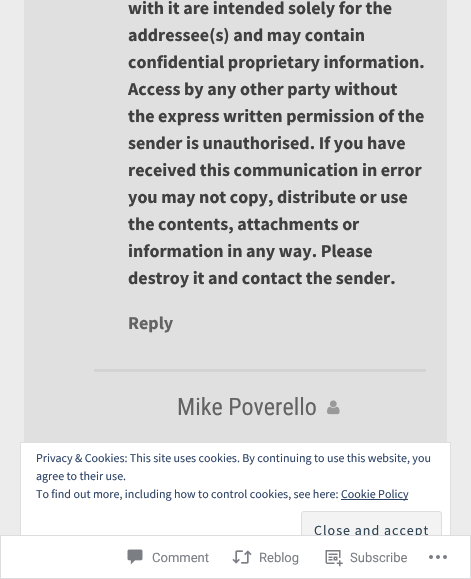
#include "include/core/SkBlurTypes.h"
#include "include/core/SkCanvas.h"
#include "include/core/SkData.h"
#include "include/core/SkFont.h"
#include "include/core/SkFontMgr.h"
#include "include/core/SkImage.h"
#include "include/core/SkMaskFilter.h"
#include "include/core/SkPaint.h"
#include "include/core/SkPathBuilder.h"
#include "include/core/SkTextBlob.h"
#include "include/effects/SkDashPathEffect.h"
#include "include/effects/SkGradientShader.h"
#include "include/utils/SkParsePath.h"

extern sk_sp<SkFontMgr> fontMgr;

static SkFont font(const char* family, int weight, float size, bool italic = false) {
    SkFontStyle style(weight, SkFontStyle::kNormal_Width,
        italic ? SkFontStyle::kItalic_Slant : SkFontStyle::kUpright_Slant);
    SkFont result(fontMgr->matchFamilyStyle(family, style), size);
    result.setSubpixel(true);
    return result;
}

static void drawLabel(SkCanvas* canvas, const char* s, float x, float y, const SkFont& font, SkColor color) {
    SkPaint ink(SkColor4f::FromColor(color));
    ink.setAntiAlias(true);
    canvas->drawString(s, x, y, font, ink);
}

static void drawTracked(SkCanvas* canvas, const char* s, float x, float y, const SkFont& font, const SkPaint& ink, float letter, float word) {
    std::vector<SkGlyphID> glyphs(font.countText(s, strlen(s), SkTextEncoding::kUTF8));
    std::vector<float> xs(glyphs.size());
    font.textToGlyphs(s, strlen(s), SkTextEncoding::kUTF8, glyphs);
    font.getXPos(glyphs, xs, x);
    float extra = 0;
    for (size_t i = 0; i < glyphs.size(); i++) {
        xs[i] += extra;
        extra += letter + word * (glyphs[i] == font.unicharToGlyph(' '));
    }
    canvas->drawTextBlob(SkTextBlob::MakeFromPosHGlyphs(glyphs, xs, y, font), 0, 0, ink);
}

static void fillRect(SkCanvas* canvas, float x, float y, float w, float h, SkColor color) {
    SkPaint ink(SkColor4f::FromColor(color));
    ink.setAntiAlias(true);
    canvas->drawRect(SkRect::MakeXYWH(x, y, w, h), ink);
}

static void drawPhoto(SkCanvas* canvas, const char* path, float x, float y, float w, float h) {
    auto image = SkImages::DeferredFromEncodedData(SkData::MakeFromFileName(path));
    canvas->drawImageRect(image, SkRect::MakeXYWH(x, y, w, h), SkSamplingOptions());
}

void draw(SkCanvas* canvas) {
    SkPaint paint;
    paint.setAntiAlias(true);
    canvas->clear(0xFFECECEC);
    fillRect(canvas, 24, 0, 423, 579, 0xFFE0E0E0);
    SkFont font1 = font("Source Sans Pro", 700, 18);
    drawLabel(canvas, "with it are intended solely for the", 128, 14, font1, 0xFF404040);
    drawLabel(canvas, "addressee(s) and may contain", 128, 41, font1, 0xFF404040);
    drawLabel(canvas, "confidential proprietary information.", 128, 68, font1, 0xFF404040);
    drawLabel(canvas, "Access by any other party without", 128, 95, font1, 0xFF404040);
    drawLabel(canvas, "the express written permission of the", 128, 122, font1, 0xFF404040);
    drawLabel(canvas, "sender is unauthorised. If you have", 128, 149, font1, 0xFF404040);
    drawLabel(canvas, "received this communication in error", 128, 176, font1, 0xFF404040);
    drawLabel(canvas, "you may not copy, distribute or use", 128, 203, font1, 0xFF404040);
    drawLabel(canvas, "the contents, attachments or", 128, 230, font1, 0xFF404040);
    drawLabel(canvas, "information in any way. Please", 128, 257, font1, 0xFF404040);
    drawLabel(canvas, "destroy it and contact the sender.", 128, 284, font1, 0xFF404040);
    drawLabel(canvas, "Reply", 128, 329, font1, 0xFF636363);
    fillRect(canvas, 94, 369, 332, 3, 0xFFD3D3D3);
    SkFont font2 = font("Roboto Condensed", 400, 24);
    drawLabel(canvas, "Mike Poverello", 177, 415, font2, 0xFF636363);
    drawPhoto(canvas, "assets/img1.png", 327, 400, 13, 15);
    paint.setColor(0xFFFFFFFF);
    canvas->drawRect(SkRect::MakeXYWH(20.5f, 442.5f, 430, 116), paint);
    paint.setStroke(true);
    paint.setStrokeWidth(1);
    paint.setColor(0xFFDEDEDE);
    canvas->drawRect(SkRect::MakeXYWH(20.5f, 442.5f, 430, 116), paint);
    SkFont font3 = font("Source Sans Pro", 400, 12);
    drawLabel(canvas, "Privacy & Cookies: This site uses cookies. By continuing to use this website, you", 36, 462, font3, 0xFF2E4467);
    drawLabel(canvas, "agree to their use.", 36, 480, font3, 0xFF2E4467);
    drawLabel(canvas, "To find out more, including how to control cookies, see here:", 36, 498, font3, 0xFF2E4467);
    fillRect(canvas, 341, 499, 67, 1, 0xFF2E4467);
    drawLabel(canvas, "Cookie Policy", 341, 498, font3, 0xFF2E4467);
    paint.setStroke(false);
    paint.setColor(0xFFF3F3F3);
    canvas->drawRoundRect(SkRect::MakeXYWH(301.5f, 511.5f, 140, 38), 2.5f, 2.5f, paint);
    paint.setStroke(true);
    paint.setColor(0xFFDEDEDE);
    canvas->drawRoundRect(SkRect::MakeXYWH(301.5f, 511.5f, 140, 38), 2.5f, 2.5f, paint);
    SkFont font4 = font("Source Sans Pro", 400, 14);
    paint.setStroke(false);
    paint.setColor(0xFF2E4453);
    drawTracked(canvas, "Close and accept", 314, 535, font4, paint, 1, 0);
    fillRect(canvas, 0, 535, 471, 44, 0xFAFFFFFF);
    paint.setStroke(true);
    paint.setColor(0xFADCDCDE);
    canvas->drawRect(SkRect::MakeXYWH(0.5f, 535.5f, 470, 43), paint);
    drawPhoto(canvas, "assets/img2.png", 127, 549, 16, 16);
    SkFont font5 = font("Roboto", 400, 13);
    drawLabel(canvas, "Comment", 152, 562, font5, 0xFF7B7F84);
    drawPhoto(canvas, "assets/img3.png", 232, 550, 20, 14);
    drawLabel(canvas, "Reblog", 259, 562, font5, 0xFF7B7F84);
    drawPhoto(canvas, "assets/img4.png", 325, 550, 18, 17);
    drawLabel(canvas, "Subscribe", 350, 562, font5, 0xFF7B7F84);
    drawPhoto(canvas, "assets/img5.png", 429, 555, 18, 4);
}
